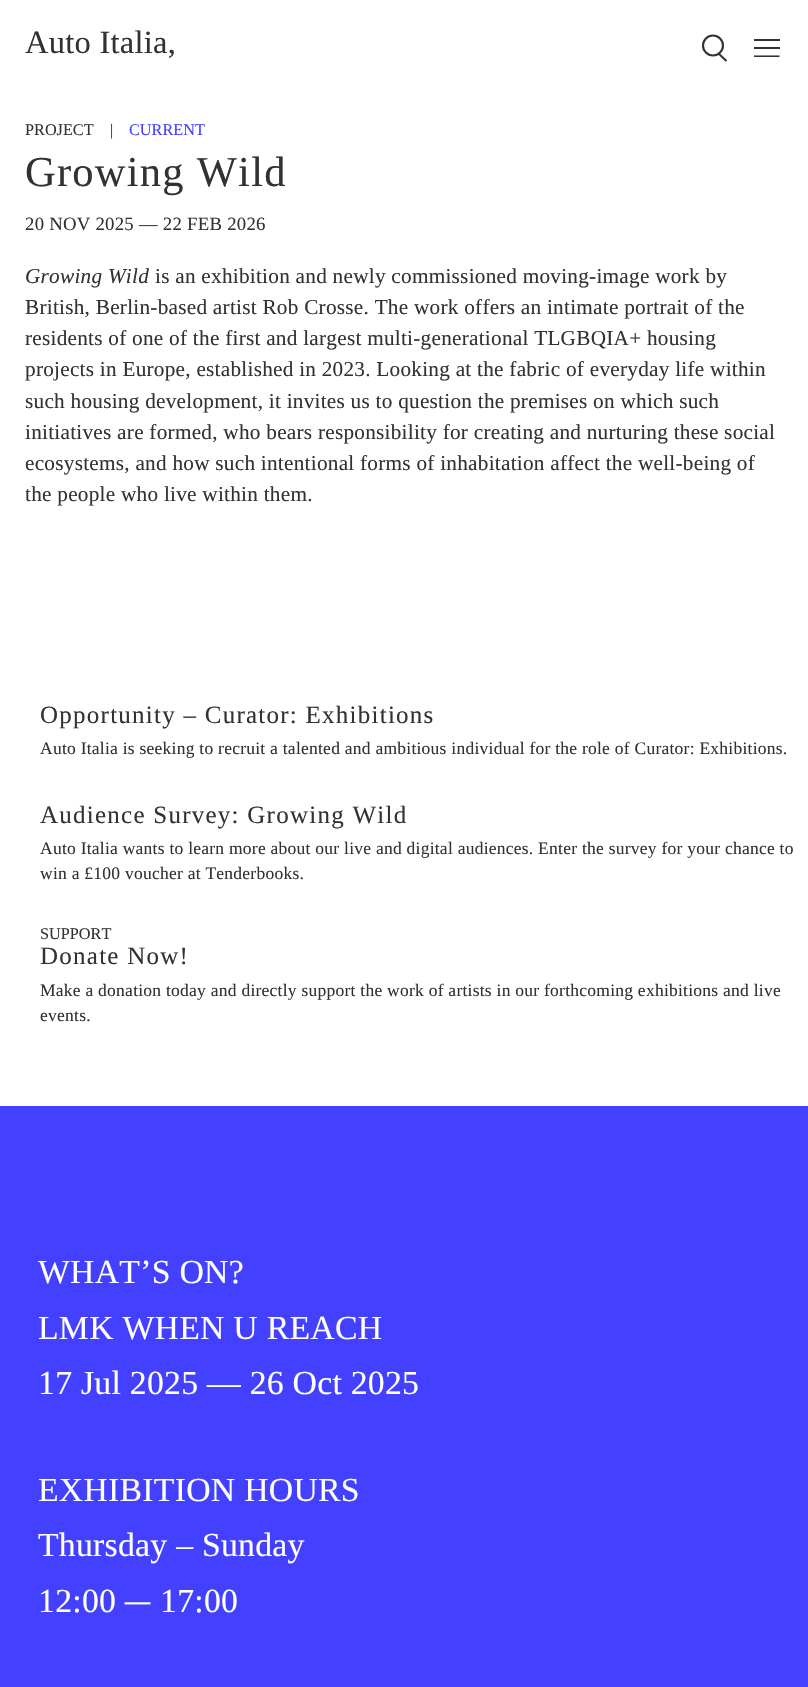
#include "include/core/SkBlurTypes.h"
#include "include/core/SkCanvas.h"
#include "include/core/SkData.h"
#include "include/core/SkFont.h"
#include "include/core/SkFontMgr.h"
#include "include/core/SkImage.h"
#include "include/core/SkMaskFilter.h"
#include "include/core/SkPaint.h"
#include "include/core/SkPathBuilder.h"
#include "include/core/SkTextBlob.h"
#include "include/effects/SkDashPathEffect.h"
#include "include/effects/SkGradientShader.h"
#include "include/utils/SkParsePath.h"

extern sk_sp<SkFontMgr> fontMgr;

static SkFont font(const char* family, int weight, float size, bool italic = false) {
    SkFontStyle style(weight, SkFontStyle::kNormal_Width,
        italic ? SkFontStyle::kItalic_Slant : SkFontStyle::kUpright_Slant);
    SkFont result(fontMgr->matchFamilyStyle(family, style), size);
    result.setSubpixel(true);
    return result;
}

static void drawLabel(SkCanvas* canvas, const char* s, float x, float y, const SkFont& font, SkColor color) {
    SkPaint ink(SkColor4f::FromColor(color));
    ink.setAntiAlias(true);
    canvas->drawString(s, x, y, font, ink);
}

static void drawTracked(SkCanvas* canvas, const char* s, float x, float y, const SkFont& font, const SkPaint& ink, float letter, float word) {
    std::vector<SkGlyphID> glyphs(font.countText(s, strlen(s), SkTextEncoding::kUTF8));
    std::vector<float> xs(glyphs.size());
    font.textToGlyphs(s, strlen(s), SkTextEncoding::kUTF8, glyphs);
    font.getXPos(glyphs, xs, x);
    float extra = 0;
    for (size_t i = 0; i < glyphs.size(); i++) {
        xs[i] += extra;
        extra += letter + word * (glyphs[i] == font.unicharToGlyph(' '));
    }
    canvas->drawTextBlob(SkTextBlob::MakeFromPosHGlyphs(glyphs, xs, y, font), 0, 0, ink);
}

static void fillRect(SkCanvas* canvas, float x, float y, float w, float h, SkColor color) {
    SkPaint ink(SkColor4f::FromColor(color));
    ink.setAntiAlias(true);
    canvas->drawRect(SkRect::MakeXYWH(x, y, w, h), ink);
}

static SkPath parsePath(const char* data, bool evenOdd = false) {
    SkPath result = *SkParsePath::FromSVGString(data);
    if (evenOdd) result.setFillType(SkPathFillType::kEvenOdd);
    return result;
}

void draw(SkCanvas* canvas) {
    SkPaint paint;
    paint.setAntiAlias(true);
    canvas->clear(0xFFFFFFFF);
    SkFont font1 = font("Liberation Serif", 400, 32.5f);
    paint.setColor(0xFF323232);
    drawTracked(canvas, "Auto Italia,", 25, 53, font1, paint, 0.25f, 0);
    paint.setStroke(true);
    paint.setStrokeWidth(2.1f);
    canvas->drawCircle(713, 45.5f, 10, paint);
    canvas->drawPath(parsePath("M719 54L726.5 61"), paint);
    fillRect(canvas, 754, 39, 26, 2, 0xFF323232);
    fillRect(canvas, 754, 47, 26, 2, 0xFF323232);
    canvas->save();
    canvas->clipRect(SkRect::MakeXYWH(754, 39, 26, 18));
    canvas->drawPath(parsePath("M754 56.5H779.5"), paint);
    canvas->restore();
    SkFont font2 = font("Liberation Serif", 400, 16.25f);
    drawLabel(canvas, "PROJECT", 25, 135, font2, 0xFF323232);
    drawLabel(canvas, "|", 110, 135, font2, 0xFF323232);
    drawLabel(canvas, "CURRENT", 129, 135, font2, 0xFF4340FF);
    SkFont font3 = font("Liberation Serif", 400, 42.5f);
    paint.setStroke(false);
    drawTracked(canvas, "Growing Wild", 25, 186, font3, paint, 1.25f, 0);
    SkFont font4 = font("Liberation Serif", 400, 18.75f);
    drawTracked(canvas, "20 NOV 2025 — 22 FEB 2026", 25, 230, font4, paint, 0.25f, 0);
    SkFont font5 = font("Liberation Serif", 400, 21.25f, true);
    drawTracked(canvas, "Growing Wild", 25, 283, font5, paint, 0.25f, 0);
    SkFont font6 = font("Liberation Serif", 400, 21.25f);
    drawTracked(canvas, "is an exhibition and newly commissioned moving-image work by", 155, 283, font6, paint, 0.25f, 0);
    drawTracked(canvas, "British, Berlin-based artist Rob Crosse. The work offers an intimate portrait of the", 25, 314, font6, paint, 0.25f, 0);
    drawTracked(canvas, "residents of one of the first and largest multi-generational TLGBQIA+ housing", 25, 345, font6, paint, 0.25f, 0);
    drawTracked(canvas, "projects in Europe, established in 2023. Looking at the fabric of everyday life within", 25, 376, font6, paint, 0.25f, 0);
    drawTracked(canvas, "such housing development, it invites us to question the premises on which such", 25, 408, font6, paint, 0.25f, 0);
    drawTracked(canvas, "initiatives are formed, who bears responsibility for creating and nurturing these social", 25, 439, font6, paint, 0.25f, 0);
    drawTracked(canvas, "ecosystems, and how such intentional forms of inhabitation affect the well-being of", 25, 470, font6, paint, 0.25f, 0);
    drawTracked(canvas, "the people who live within them.", 25, 501, font6, paint, 0.25f, 0);
    SkFont font7 = font("Liberation Serif", 400, 25);
    drawTracked(canvas, "Opportunity – Curator: Exhibitions", 40, 723, font7, paint, 1.25f, 0);
    SkFont font8 = font("Liberation Serif", 400, 17.5f);
    drawTracked(canvas, "Auto Italia is seeking to recruit a talented and ambitious individual for the role of Curator: Exhibitions.", 40, 754, font8, paint, 0.25f, 0);
    drawTracked(canvas, "Audience Survey: Growing Wild", 40, 823, font7, paint, 1.25f, 0);
    drawTracked(canvas, "Auto Italia wants to learn more about our live and digital audiences. Enter the survey for your chance to", 40, 854, font8, paint, 0.25f, 0);
    drawTracked(canvas, "win a £100 voucher at Tenderbooks.", 40, 879, font8, paint, 0.25f, 0);
    drawLabel(canvas, "SUPPORT", 40, 939, font2, 0xFF323232);
    drawTracked(canvas, "Donate Now!", 40, 964, font7, paint, 1.25f, 0);
    drawTracked(canvas, "Make a donation today and directly support the work of artists in our forthcoming exhibitions and live", 40, 996, font8, paint, 0.25f, 0);
    drawTracked(canvas, "events.", 40, 1021, font8, paint, 0.25f, 0);
    fillRect(canvas, 0, 1106, 808, 581, 0xFF4340FF);
    SkFont font9 = font("Liberation Serif", 400, 33.75f);
    paint.setColor(0xFFFFFFFF);
    drawTracked(canvas, "WHAT’S ON?", 38, 1283, font9, paint, 0.25f, 0);
    drawTracked(canvas, "LMK WHEN U REACH", 38, 1339, font9, paint, 0.25f, 0);
    drawTracked(canvas, "17 Jul 2025 — 26 Oct 2025", 38, 1394, font9, paint, 0.25f, 0);
    drawTracked(canvas, "EXHIBITION HOURS", 38, 1501, font9, paint, 0.25f, 0);
    drawTracked(canvas, "Thursday – Sunday", 38, 1556, font9, paint, 0.25f, 0);
    drawTracked(canvas, "12:00", 38, 1612, font9, paint, 0.25f, 0);
    SkFont font10 = font("FreeSerif", 400, 33.75f);
    drawTracked(canvas, "⏤", 124, 1612, font10, paint, 0.25f, 0);
    drawTracked(canvas, "17:00", 160, 1612, font9, paint, 0.25f, 0);
}
